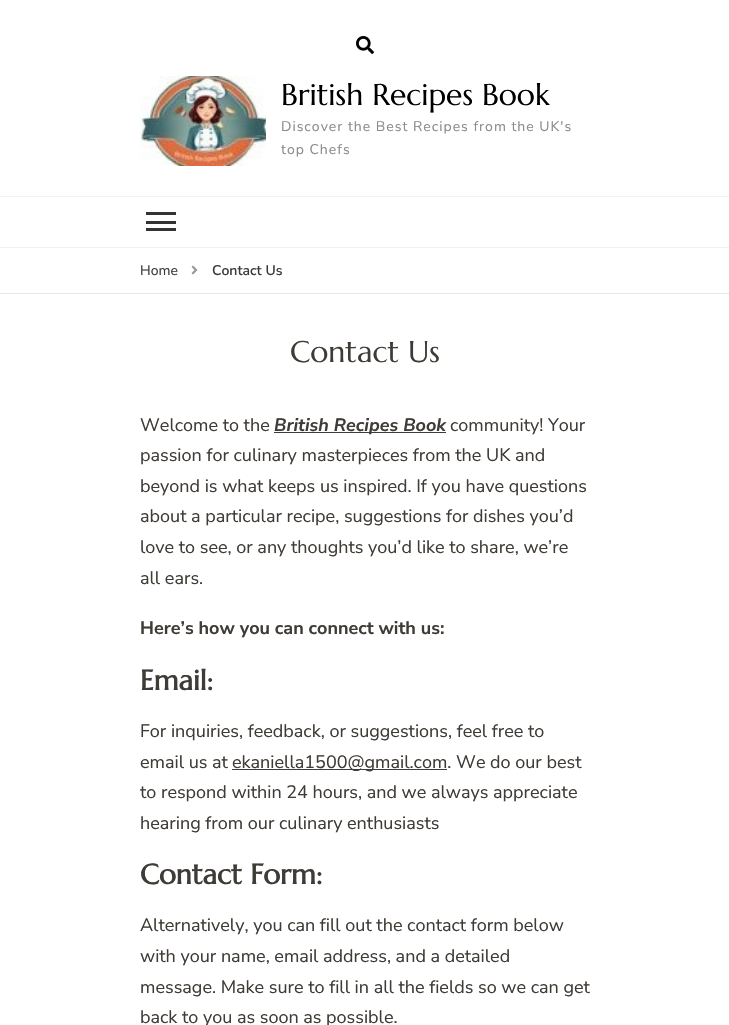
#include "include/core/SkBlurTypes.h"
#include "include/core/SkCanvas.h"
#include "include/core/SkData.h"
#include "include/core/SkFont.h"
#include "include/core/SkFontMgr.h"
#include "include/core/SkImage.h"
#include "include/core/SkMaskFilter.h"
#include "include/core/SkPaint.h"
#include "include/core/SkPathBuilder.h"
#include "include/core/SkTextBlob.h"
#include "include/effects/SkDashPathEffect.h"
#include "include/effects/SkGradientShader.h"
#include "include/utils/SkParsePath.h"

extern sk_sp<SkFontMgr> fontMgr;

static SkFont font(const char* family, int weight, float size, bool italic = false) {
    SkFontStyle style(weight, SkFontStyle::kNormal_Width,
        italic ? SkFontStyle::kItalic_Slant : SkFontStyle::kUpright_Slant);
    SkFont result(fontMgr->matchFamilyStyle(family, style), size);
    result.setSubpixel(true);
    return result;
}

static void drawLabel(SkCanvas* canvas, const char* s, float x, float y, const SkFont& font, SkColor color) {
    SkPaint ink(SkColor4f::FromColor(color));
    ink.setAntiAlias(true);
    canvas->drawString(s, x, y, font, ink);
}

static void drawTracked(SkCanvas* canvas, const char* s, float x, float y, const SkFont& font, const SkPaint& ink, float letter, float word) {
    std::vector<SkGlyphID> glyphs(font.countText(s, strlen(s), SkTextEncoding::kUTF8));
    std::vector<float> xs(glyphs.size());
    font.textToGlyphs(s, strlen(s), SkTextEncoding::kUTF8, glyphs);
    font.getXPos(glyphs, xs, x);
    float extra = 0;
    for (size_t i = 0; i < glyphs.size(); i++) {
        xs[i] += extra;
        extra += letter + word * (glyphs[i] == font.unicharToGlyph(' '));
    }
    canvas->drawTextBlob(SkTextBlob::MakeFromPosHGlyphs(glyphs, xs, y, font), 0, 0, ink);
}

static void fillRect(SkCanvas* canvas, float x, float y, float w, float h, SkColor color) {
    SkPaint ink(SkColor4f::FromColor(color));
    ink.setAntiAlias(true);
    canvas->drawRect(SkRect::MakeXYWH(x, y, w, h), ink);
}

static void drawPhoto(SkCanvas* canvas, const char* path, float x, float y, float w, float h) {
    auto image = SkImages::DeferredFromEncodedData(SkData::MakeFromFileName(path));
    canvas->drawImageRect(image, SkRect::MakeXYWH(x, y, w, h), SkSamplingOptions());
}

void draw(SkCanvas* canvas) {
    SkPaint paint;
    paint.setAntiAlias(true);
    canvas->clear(0xFFFFFFFF);
    fillRect(canvas, 0, 247, 729, 1, 0xFFF2F2F2);
    drawPhoto(canvas, "assets/img1.png", 356, 36, 18, 18);
    drawPhoto(canvas, "assets/img2.png", 140, 76, 126, 90);
    SkFont font1 = font("Marcellus", 400, 30);
    drawLabel(canvas, "British Recipes Book", 281, 105, font1, 0xFF000000);
    SkFont font2 = font("Nunito Sans", 400, 14);
    paint.setColor(0xFF8C8C8C);
    drawTracked(canvas, "Discover the Best Recipes from the UK's", 281, 131, font2, paint, 1, 0);
    drawTracked(canvas, "top Chefs", 281, 154, font2, paint, 1, 0);
    fillRect(canvas, 0, 196, 729, 1, 0xFFF2F2F2);
    fillRect(canvas, 146, 212, 30, 3, 0xFF333333);
    fillRect(canvas, 146, 221, 30, 3, 0xFF333333);
    fillRect(canvas, 146, 228, 30, 3, 0xFF333333);
    fillRect(canvas, 0, 293, 729, 1, 0xFFE6E6E6);
    drawLabel(canvas, "Home", 140, 275, font2, 0xFF3F3B36);
    drawPhoto(canvas, "assets/img3.png", 191, 265, 7, 10);
    SkFont font3 = font("Nunito Sans", 600, 14);
    drawLabel(canvas, "Contact Us", 212, 275, font3, 0xFF3F3B36);
    drawLabel(canvas, "Contact Us", 290, 362, font1, 0xFF3F3B36);
    SkFont font4 = font("Nunito Sans", 400, 18);
    drawLabel(canvas, "Welcome to the", 140, 431, font4, 0xFF3F3B36);
    fillRect(canvas, 274, 432, 172, 1, 0xFF3F3B36);
    SkFont font5 = font("Nunito Sans", 700, 18, true);
    drawLabel(canvas, "British Recipes Book", 274, 431, font5, 0xFF3F3B36);
    drawLabel(canvas, "community! Your", 450, 431, font4, 0xFF3F3B36);
    drawLabel(canvas, "passion for culinary masterpieces from the UK and", 140, 461, font4, 0xFF3F3B36);
    drawLabel(canvas, "beyond is what keeps us inspired. If you have questions", 140, 492, font4, 0xFF3F3B36);
    drawLabel(canvas, "about a particular recipe, suggestions for dishes you’d", 140, 522, font4, 0xFF3F3B36);
    drawLabel(canvas, "love to see, or any thoughts you’d like to share, we’re", 140, 553, font4, 0xFF3F3B36);
    drawLabel(canvas, "all ears.", 140, 584, font4, 0xFF3F3B36);
    SkFont font6 = font("Nunito Sans", 700, 18);
    drawLabel(canvas, "Here’s how you can connect with us:", 140, 634, font6, 0xFF3F3B36);
    SkFont font7 = font("Marcellus", 700, 28);
    drawLabel(canvas, "Email:", 140, 690, font7, 0xFF3F3B36);
    drawLabel(canvas, "For inquiries, feedback, or suggestions, feel free to", 140, 737, font4, 0xFF3F3B36);
    drawLabel(canvas, "email us at", 140, 768, font4, 0xFF3F3B36);
    fillRect(canvas, 232, 769, 215, 1, 0xFF3F3B36);
    drawLabel(canvas, "ekaniella1500@gmail.com. We do our best", 232, 768, font4, 0xFF3F3B36);
    drawLabel(canvas, "to respond within 24 hours, and we always appreciate", 140, 798, font4, 0xFF3F3B36);
    drawLabel(canvas, "hearing from our culinary enthusiasts", 140, 829, font4, 0xFF3F3B36);
    drawLabel(canvas, "Contact Form:", 140, 884, font7, 0xFF3F3B36);
    drawLabel(canvas, "Alternatively, you can fill out the contact form below", 140, 931, font4, 0xFF3F3B36);
    drawLabel(canvas, "with your name, email address, and a detailed", 140, 962, font4, 0xFF3F3B36);
    drawLabel(canvas, "message. Make sure to fill in all the fields so we can get", 140, 993, font4, 0xFF3F3B36);
    drawLabel(canvas, "back to you as soon as possible.", 140, 1023, font4, 0xFF3F3B36);
}
